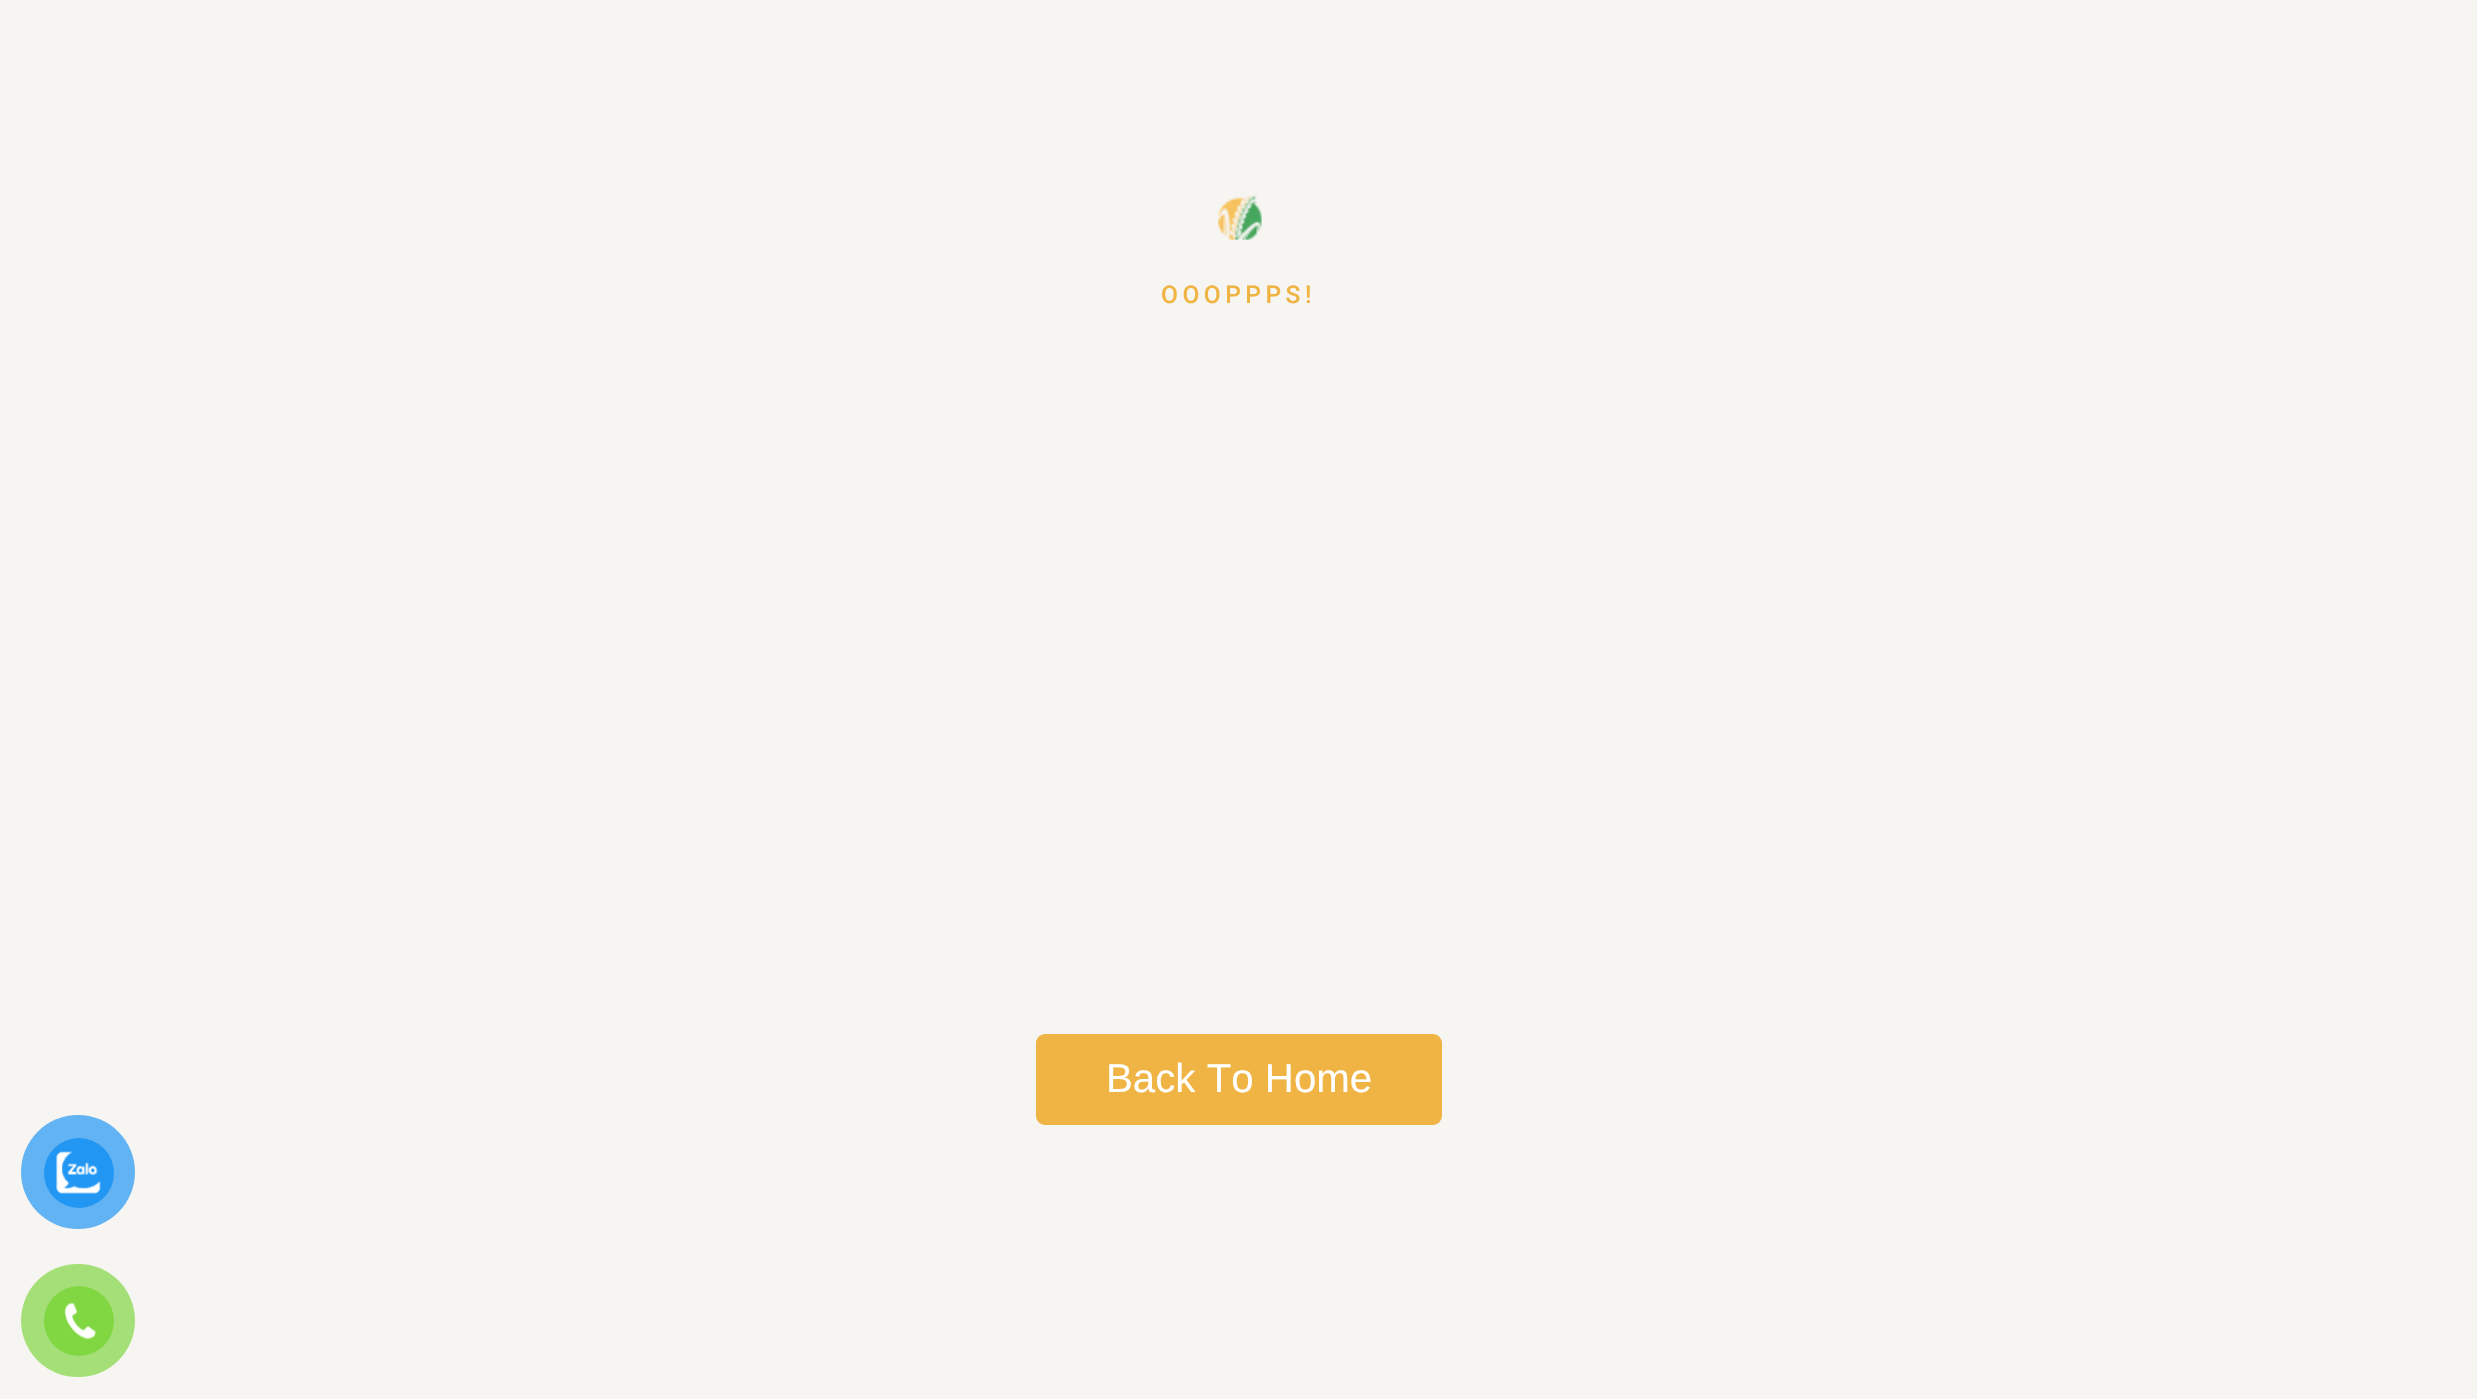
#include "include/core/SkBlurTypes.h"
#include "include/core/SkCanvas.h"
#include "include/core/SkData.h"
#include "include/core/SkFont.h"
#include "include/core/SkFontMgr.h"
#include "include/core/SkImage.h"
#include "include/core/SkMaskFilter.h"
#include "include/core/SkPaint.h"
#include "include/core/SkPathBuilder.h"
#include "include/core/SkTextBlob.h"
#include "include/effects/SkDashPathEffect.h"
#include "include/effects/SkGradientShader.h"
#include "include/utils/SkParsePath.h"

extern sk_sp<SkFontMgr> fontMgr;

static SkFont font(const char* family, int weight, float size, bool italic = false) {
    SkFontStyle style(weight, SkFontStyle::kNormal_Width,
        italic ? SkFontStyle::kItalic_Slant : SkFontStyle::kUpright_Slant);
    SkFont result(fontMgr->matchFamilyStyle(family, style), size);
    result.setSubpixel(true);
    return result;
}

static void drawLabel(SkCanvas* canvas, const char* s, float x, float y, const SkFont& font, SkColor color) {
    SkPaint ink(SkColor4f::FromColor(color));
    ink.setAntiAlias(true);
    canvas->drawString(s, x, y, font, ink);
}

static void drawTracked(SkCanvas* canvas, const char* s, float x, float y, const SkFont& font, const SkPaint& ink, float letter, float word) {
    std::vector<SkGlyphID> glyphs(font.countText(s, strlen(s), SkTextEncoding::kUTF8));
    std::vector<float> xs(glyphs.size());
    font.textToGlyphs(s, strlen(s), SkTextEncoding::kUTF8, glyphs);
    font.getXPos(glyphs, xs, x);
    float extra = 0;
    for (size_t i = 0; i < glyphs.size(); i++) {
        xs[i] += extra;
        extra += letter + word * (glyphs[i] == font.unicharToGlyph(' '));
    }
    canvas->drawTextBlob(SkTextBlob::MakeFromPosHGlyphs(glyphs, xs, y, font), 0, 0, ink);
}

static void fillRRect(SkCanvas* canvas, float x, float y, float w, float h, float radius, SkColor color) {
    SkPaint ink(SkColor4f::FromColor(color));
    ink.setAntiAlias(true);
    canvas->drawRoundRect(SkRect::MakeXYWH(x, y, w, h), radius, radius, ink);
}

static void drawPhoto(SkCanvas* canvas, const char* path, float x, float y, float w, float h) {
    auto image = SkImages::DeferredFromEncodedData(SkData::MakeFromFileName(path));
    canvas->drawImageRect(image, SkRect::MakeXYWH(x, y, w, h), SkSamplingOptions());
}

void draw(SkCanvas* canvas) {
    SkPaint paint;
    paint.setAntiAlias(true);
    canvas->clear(0xFFF6F5F2);
    drawPhoto(canvas, "assets/img1.png", 1218, 196, 44, 44);
    SkFont font1 = font("Roboto", 500, 24.5f);
    paint.setColor(0xFFEFB443);
    drawTracked(canvas, "OOOPPPS!", 1161, 303, font1, paint, 4.5f, 0);
    fillRRect(canvas, 1036, 1034, 406, 91, 9, 0xFFEFB443);
    SkFont font2 = font("Liberation Sans", 400, 40.25f);
    drawLabel(canvas, "Back To Home", 1106, 1092, font2, 0xFFFFFFFF);
    paint.setColor(0xFF61B3F3);
    canvas->drawCircle(78, 1172, 57, paint);
    paint.setColor(0xFF2196F3);
    canvas->drawCircle(79, 1173, 35, paint);
    drawPhoto(canvas, "assets/img2.png", 56, 1151, 45, 43);
    fillRRect(canvas, 21, 1264, 114, 113, 56.5f, 0xFFA4E077);
    paint.setColor(0xFF81D742);
    canvas->drawCircle(79, 1321, 35, paint);
    drawPhoto(canvas, "assets/img3.png", 64, 1302, 32, 38);
}
